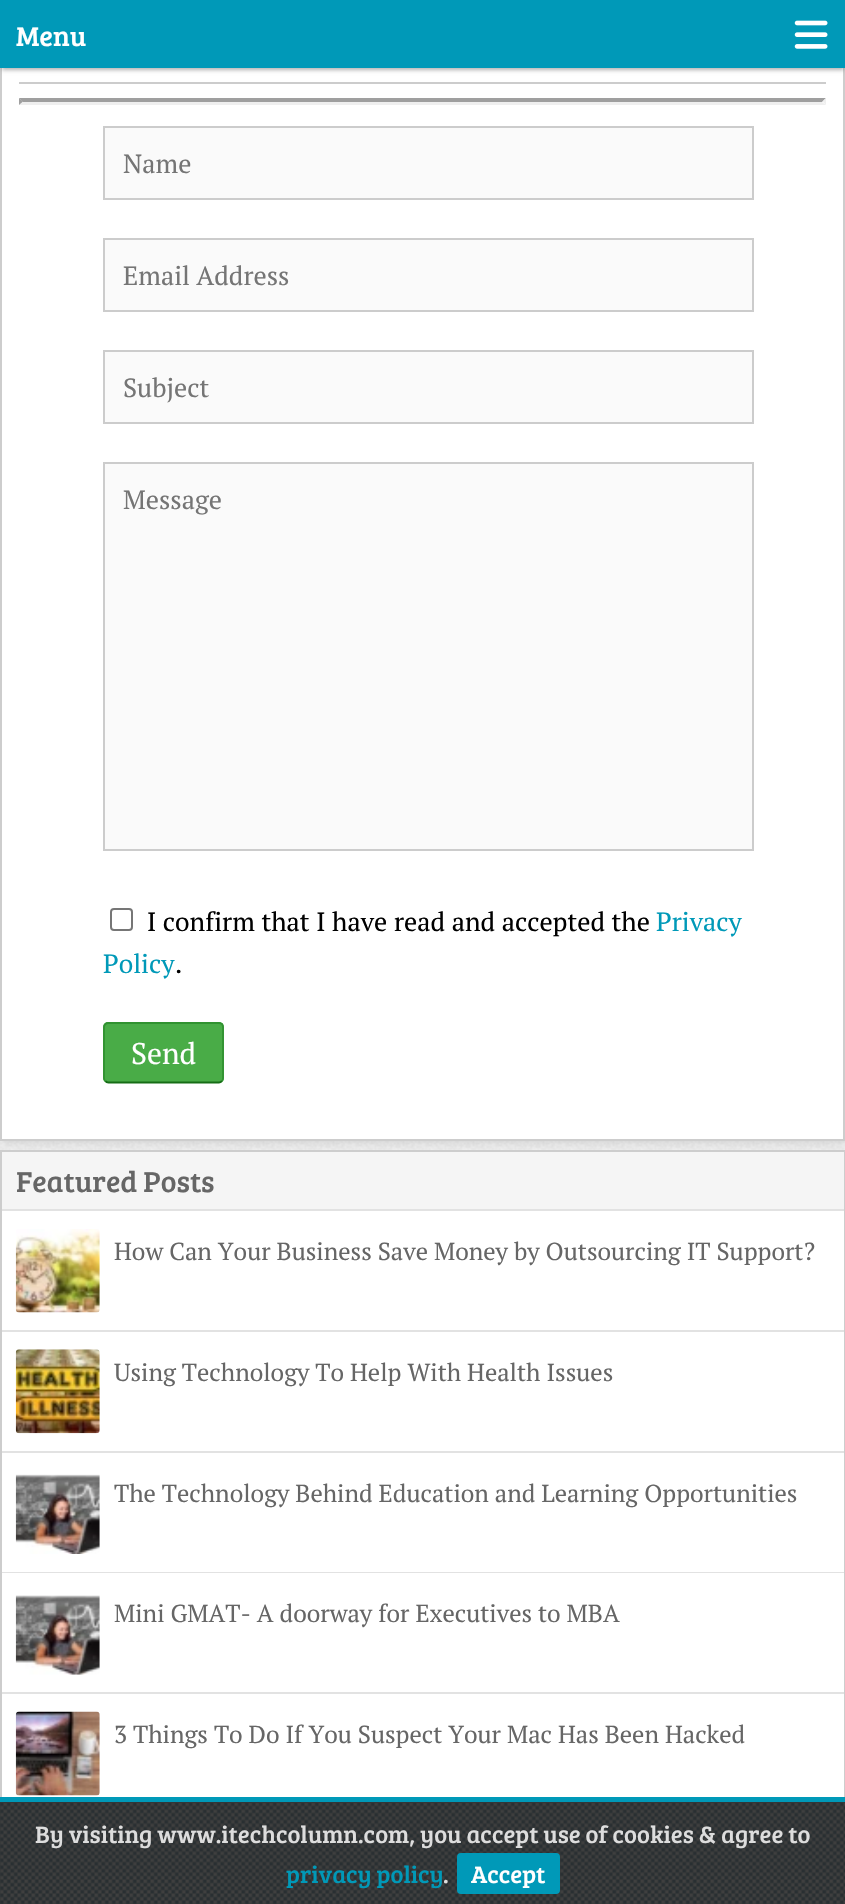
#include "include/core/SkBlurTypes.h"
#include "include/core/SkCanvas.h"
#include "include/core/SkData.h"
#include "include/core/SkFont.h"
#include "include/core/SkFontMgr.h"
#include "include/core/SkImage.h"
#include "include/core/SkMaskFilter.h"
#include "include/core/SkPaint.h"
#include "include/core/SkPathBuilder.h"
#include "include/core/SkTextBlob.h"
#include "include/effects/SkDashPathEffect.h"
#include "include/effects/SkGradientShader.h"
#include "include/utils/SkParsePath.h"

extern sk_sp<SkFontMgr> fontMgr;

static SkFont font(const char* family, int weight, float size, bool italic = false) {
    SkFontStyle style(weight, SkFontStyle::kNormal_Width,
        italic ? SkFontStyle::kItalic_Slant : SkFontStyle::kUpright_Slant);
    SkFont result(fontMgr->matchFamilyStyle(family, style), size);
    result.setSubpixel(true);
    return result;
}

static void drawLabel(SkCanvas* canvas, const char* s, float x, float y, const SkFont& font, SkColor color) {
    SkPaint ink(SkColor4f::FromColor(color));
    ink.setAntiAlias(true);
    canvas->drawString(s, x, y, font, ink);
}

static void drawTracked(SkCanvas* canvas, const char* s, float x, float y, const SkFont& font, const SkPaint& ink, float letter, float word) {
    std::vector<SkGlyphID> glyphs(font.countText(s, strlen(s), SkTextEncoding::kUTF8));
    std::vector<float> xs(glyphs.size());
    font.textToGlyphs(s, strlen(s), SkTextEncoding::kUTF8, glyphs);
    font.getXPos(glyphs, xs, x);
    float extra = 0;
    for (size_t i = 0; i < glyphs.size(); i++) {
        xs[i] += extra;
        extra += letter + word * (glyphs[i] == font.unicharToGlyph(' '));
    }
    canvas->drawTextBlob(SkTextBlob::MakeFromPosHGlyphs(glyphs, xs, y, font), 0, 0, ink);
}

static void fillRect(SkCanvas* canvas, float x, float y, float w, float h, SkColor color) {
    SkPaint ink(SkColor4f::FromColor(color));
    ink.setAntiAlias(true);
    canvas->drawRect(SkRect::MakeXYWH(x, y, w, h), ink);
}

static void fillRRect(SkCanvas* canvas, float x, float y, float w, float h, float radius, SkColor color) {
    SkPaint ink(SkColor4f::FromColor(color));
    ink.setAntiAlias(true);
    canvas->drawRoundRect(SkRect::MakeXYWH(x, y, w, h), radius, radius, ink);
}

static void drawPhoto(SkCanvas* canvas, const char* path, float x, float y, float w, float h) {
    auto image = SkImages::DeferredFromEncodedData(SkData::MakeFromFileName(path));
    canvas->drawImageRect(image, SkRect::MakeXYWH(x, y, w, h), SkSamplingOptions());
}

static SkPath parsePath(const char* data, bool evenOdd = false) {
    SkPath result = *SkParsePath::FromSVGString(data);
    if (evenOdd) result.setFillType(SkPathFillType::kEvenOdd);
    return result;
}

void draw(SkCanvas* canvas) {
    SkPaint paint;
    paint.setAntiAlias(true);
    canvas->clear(0xFFFFFFFF);
    drawPhoto(canvas, "assets/img1.png", 0, 1141, 845, 9);
    paint.setColor(0x1A000000);
    paint.setMaskFilter(SkMaskFilter::MakeBlur(kNormal_SkBlurStyle, 3.5f));
    canvas->drawRect(SkRect::MakeXYWH(2, -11, 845, 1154), paint);
    paint.setMaskFilter(nullptr);
    fillRect(canvas, 2, 68, 841, 1071, 0xFFFFFFFF);
    paint.setStroke(true);
    paint.setStrokeWidth(2);
    paint.setColor(0xFFCDCDCD);
    canvas->drawRect(SkRect::MakeXYWH(1, -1, 843, 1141), paint);
    paint.setStroke(false);
    paint.setColor(0x4D000000);
    paint.setMaskFilter(SkMaskFilter::MakeBlur(kNormal_SkBlurStyle, 2));
    canvas->drawRect(SkRect::MakeXYWH(2, 5, 842, 65), paint);
    paint.setMaskFilter(nullptr);
    fillRect(canvas, 0, 0, 845, 68, 0xFF0099B8);
    SkFont font1 = font("Bree Serif", 400, 28);
    drawLabel(canvas, "Menu", 16, 46, font1, 0xFFFFFFFF);
    drawPhoto(canvas, "assets/img2.png", 794, 20, 34, 29);
    fillRect(canvas, 19, 82, 807, 2, 0xFFCCCCCC);
    paint.setColor(0xFF9F9F9F);
    canvas->drawPath(parsePath("M19 98H826L822 102H23Z"), paint);
    paint.setColor(0xFFEFEFEF);
    canvas->drawPath(parsePath("M826 98V105L822.5 101.5Z"), paint);
    canvas->drawPath(parsePath("M826 105H19L23 102H822Z"), paint);
    paint.setColor(0xFF9F9F9F);
    canvas->drawPath(parsePath("M19 105V98L23 101.5Z"), paint);
    paint.setColor(0xFFFAFAFA);
    canvas->drawRect(SkRect::MakeXYWH(104, 127, 649, 72), paint);
    paint.setStroke(true);
    paint.setColor(0xFFCCCCCC);
    canvas->drawRect(SkRect::MakeXYWH(104, 127, 649, 72), paint);
    SkFont font2 = font("PT Serif", 400, 26.25f);
    drawLabel(canvas, "Name", 123, 173, font2, 0xFF757575);
    paint.setStroke(false);
    paint.setColor(0xFFFAFAFA);
    canvas->drawRect(SkRect::MakeXYWH(104, 239, 649, 72), paint);
    paint.setStroke(true);
    paint.setColor(0xFFCCCCCC);
    canvas->drawRect(SkRect::MakeXYWH(104, 239, 649, 72), paint);
    drawLabel(canvas, "Email Address", 123, 285, font2, 0xFF757575);
    paint.setStroke(false);
    paint.setColor(0xFFFAFAFA);
    canvas->drawRect(SkRect::MakeXYWH(104, 351, 649, 72), paint);
    paint.setStroke(true);
    paint.setColor(0xFFCCCCCC);
    canvas->drawRect(SkRect::MakeXYWH(104, 351, 649, 72), paint);
    drawLabel(canvas, "Subject", 123, 397, font2, 0xFF757575);
    paint.setStroke(false);
    paint.setColor(0xFFFAFAFA);
    canvas->drawRect(SkRect::MakeXYWH(104, 463, 649, 387), paint);
    paint.setStroke(true);
    paint.setColor(0xFFCCCCCC);
    canvas->drawRect(SkRect::MakeXYWH(104, 463, 649, 387), paint);
    drawLabel(canvas, "Message", 123, 509, font2, 0xFF757575);
    paint.setColor(0xFF767676);
    canvas->drawRoundRect(SkRect::MakeXYWH(111, 909, 21, 21), 3, 3, paint);
    paint.setStroke(false);
    paint.setColor(0xFF000000);
    drawTracked(canvas, "I confirm that I have read and accepted the", 147, 931, font2, paint, 0, 0.25f);
    drawLabel(canvas, "Privacy", 656, 931, font2, 0xFF0099B8);
    drawLabel(canvas, "Policy", 103, 973, font2, 0xFF0099B8);
    drawLabel(canvas, ".", 175, 973, font2, 0xFF000000);
    fillRRect(canvas, 103, 1022, 121, 61, 5, 0xFF49AC47);
    paint.setStroke(true);
    paint.setStrokeWidth(1.8f);
    paint.setColor(0xFF166D16);
    canvas->drawPath(parsePath("M222 1081C221 1082 220 1082.5 219 1082.5H108.5C107.5 1082.5 106 1082 105.5 1081"), paint);
    paint.setColor(0xFF309230);
    canvas->drawPath(parsePath("M105.5 1081C104.5 1080.5 104 1079 104 1078V1027C104 1026 104.5 1025 105.5 1024C106 1023.5 107.5 1023 108.5 1023H219C220 1023 221 1023.5 222 1024C222.5 1025 223 1026 223 1027V1078C223 1079 222.5 1080.5 222 1081"), paint);
    SkFont font3 = font("PT Serif", 400, 29.75f);
    drawLabel(canvas, "Send", 131, 1064, font3, 0xFFFFFFFF);
    paint.setStrokeWidth(2);
    paint.setColor(0xFFCDCDCD);
    canvas->drawRect(SkRect::MakeXYWH(1, 1151, 843, 665), paint);
    fillRect(canvas, 2, 1152, 842, 57, 0xFFF5F5F5);
    fillRect(canvas, 2, 1209, 842, 2, 0xFFE2E2E2);
    SkFont font4 = font("Bree Serif", 400, 29.75f);
    drawLabel(canvas, "Featured Posts", 16, 1192, font4, 0xFF666666);
    fillRect(canvas, 843, 1211, 1, 119, 0xFFFFFFFF);
    fillRect(canvas, 2, 1330, 842, 2, 0xFFE2E2E2);
    drawPhoto(canvas, "assets/img3.png", 15, 1229, 85, 84);
    SkFont font5 = font("PT Serif", 400, 24.5f);
    drawLabel(canvas, "How Can Your Business Save Money by Outsourcing IT Support?", 114, 1260, font5, 0xFF666666);
    fillRect(canvas, 843, 1332, 1, 119, 0xFFFFFFFF);
    fillRect(canvas, 2, 1451, 842, 2, 0xFFE2E2E2);
    drawPhoto(canvas, "assets/img4.png", 15, 1349, 85, 85);
    drawLabel(canvas, "Using Technology To Help With Health Issues", 114, 1381, font5, 0xFF666666);
    fillRect(canvas, 843, 1453, 1, 119, 0xFFFFFFFF);
    fillRect(canvas, 2, 1572, 842, 1, 0xFFE2E2E2);
    drawPhoto(canvas, "assets/img5.png", 15, 1474, 85, 80);
    drawLabel(canvas, "The Technology Behind Education and Learning Opportunities", 114, 1502, font5, 0xFF666666);
    fillRect(canvas, 843, 1573, 1, 119, 0xFFFFFFFF);
    fillRect(canvas, 2, 1692, 842, 2, 0xFFE2E2E2);
    drawPhoto(canvas, "assets/img6.png", 15, 1595, 85, 80);
    drawLabel(canvas, "Mini GMAT- A doorway for Executives to MBA", 114, 1622, font5, 0xFF666666);
    fillRect(canvas, 843, 1694, 1, 103, 0xFFFFFFFF);
    drawPhoto(canvas, "assets/img7.png", 15, 1711, 85, 85);
    drawLabel(canvas, "3 Things To Do If You Suspect Your Mac Has Been Hacked", 114, 1743, font5, 0xFF666666);
    drawPhoto(canvas, "assets/img8.png", 0, 1802, 845, 73);
    fillRect(canvas, 0, 1797, 845, 5, 0xFF0099B8);
    SkFont font6 = font("Bree Serif", 400, 24.5f);
    drawLabel(canvas, "By visiting www.itechcolumn.com, you accept use of cookies & agree to", 35, 1843, font6, 0xFFDDDDDD);
    drawPhoto(canvas, "assets/img9.png", 0, 1875, 845, 29);
    drawLabel(canvas, "privacy policy", 286, 1883, font6, 0xFF0099B8);
    drawLabel(canvas, ".", 443, 1883, font6, 0xFFDDDDDD);
    fillRRect(canvas, 457, 1853, 103, 41, 4, 0xFF0099B8);
    drawLabel(canvas, "Accept", 471, 1883, font6, 0xFFFFFFFF);
}
